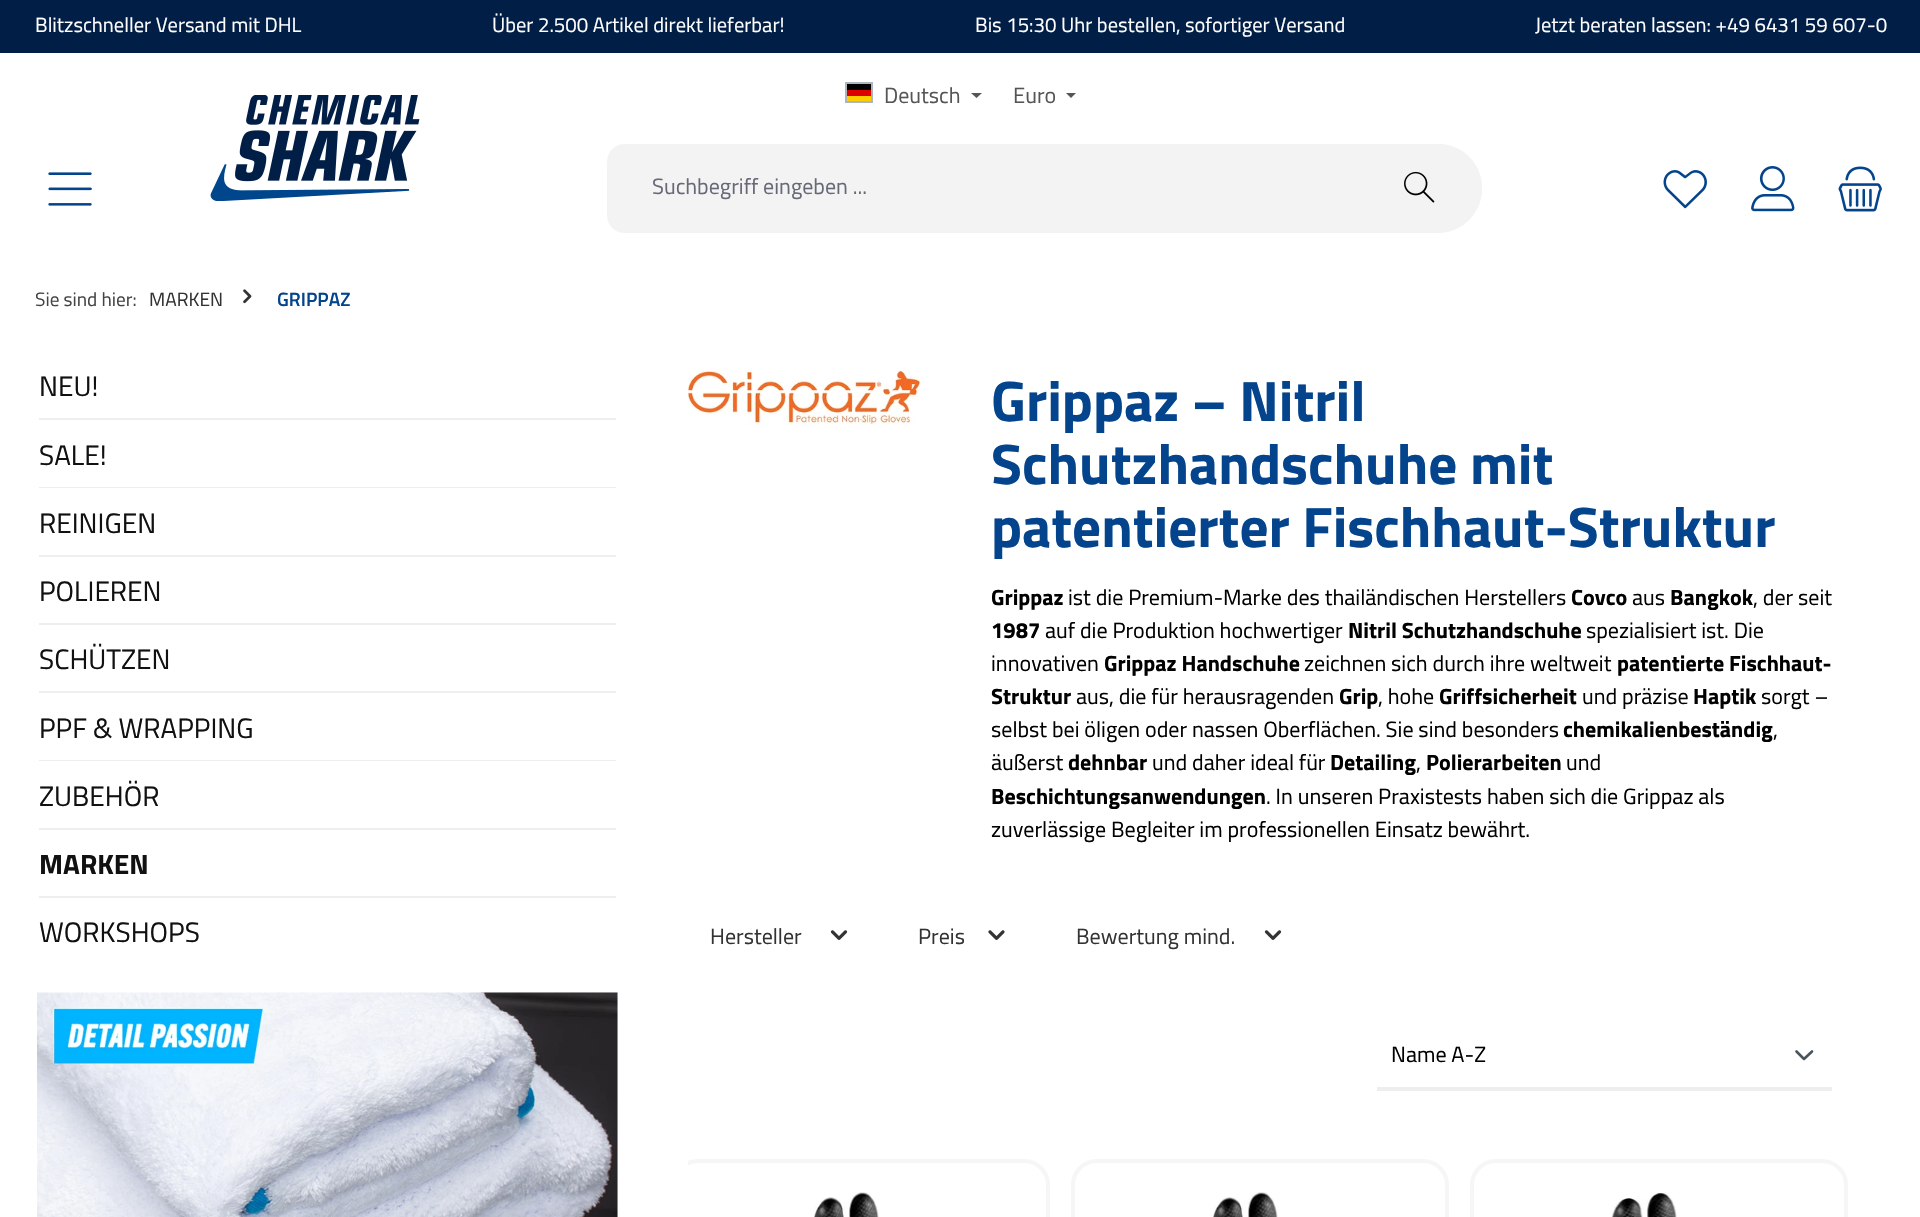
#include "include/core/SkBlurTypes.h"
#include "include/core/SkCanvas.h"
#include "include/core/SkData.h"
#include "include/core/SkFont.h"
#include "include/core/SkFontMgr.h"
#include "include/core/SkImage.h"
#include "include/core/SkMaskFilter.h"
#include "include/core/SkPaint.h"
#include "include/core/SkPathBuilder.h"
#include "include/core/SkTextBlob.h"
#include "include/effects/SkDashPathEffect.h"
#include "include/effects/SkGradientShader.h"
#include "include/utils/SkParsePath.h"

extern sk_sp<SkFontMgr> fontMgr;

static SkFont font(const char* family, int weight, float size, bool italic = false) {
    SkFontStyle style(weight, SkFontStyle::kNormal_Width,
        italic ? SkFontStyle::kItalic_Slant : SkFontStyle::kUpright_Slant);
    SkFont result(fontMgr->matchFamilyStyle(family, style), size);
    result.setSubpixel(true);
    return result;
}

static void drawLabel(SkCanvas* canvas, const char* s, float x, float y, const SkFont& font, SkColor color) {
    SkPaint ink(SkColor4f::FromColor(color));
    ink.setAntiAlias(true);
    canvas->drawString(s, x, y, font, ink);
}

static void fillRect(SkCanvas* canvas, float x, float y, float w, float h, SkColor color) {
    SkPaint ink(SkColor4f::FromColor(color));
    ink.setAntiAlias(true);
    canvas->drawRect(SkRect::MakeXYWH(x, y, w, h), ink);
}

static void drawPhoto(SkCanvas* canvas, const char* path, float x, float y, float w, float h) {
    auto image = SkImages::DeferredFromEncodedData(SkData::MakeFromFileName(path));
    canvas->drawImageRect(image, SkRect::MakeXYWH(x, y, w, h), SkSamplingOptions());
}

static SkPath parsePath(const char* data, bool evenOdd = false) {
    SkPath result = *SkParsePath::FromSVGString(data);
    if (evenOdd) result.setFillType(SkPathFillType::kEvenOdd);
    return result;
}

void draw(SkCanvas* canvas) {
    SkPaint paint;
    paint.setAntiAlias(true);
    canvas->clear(0xFFFFFFFF);
    fillRect(canvas, 0, 0, 1920, 53, 0xFF001E46);
    SkFont font1 = font("Titillium Web", 400, 20.5f);
    drawLabel(canvas, "Blitzschneller Versand mit DHL", 35, 32, font1, 0xFFFFFFFF);
    drawLabel(canvas, "Über 2.500 Artikel direkt lieferbar!", 492, 32, font1, 0xFFFFFFFF);
    drawLabel(canvas, "Bis 15:30 Uhr bestellen, sofortiger Versand", 975, 32, font1, 0xFFFFFFFF);
    drawLabel(canvas, "Jetzt beraten lassen: +49 6431 59 607-0", 1535, 32, font1, 0xFFFFFFFF);
    fillRect(canvas, 847, 96, 25, 5, 0xFFFFCE00);
    fillRect(canvas, 847, 84, 25, 6, 0xFF000000);
    fillRect(canvas, 847, 90, 25, 6, 0xFFDD0000);
    paint.setStroke(true);
    paint.setStrokeWidth(2);
    paint.setColor(0xFFADB5BD);
    canvas->drawRect(SkRect::MakeXYWH(846, 83, 26, 19), paint);
    SkFont font2 = font("Titillium Web", 400, 22.05f);
    drawLabel(canvas, "Deutsch", 884, 103, font2, 0xFF555555);
    paint.setStroke(false);
    paint.setColor(0xFF555555);
    canvas->drawPath(parsePath("M971 93H982L976.5 98Z"), paint);
    drawLabel(canvas, "Euro", 1013, 103, font2, 0xFF555555);
    canvas->drawPath(parsePath("M1066 93H1076L1071 98Z"), paint);
    drawPhoto(canvas, "assets/img1.png", 210, 95, 210, 106);
    drawPhoto(canvas, "assets/img2.png", 48, 172, 44, 34);
    paint.setColor(0xFFF3F3F3);
    canvas->drawPath(parsePath("M625 145H1359V232H625C615.5 232 608 224.5 608 215V162C608 152.5 615.5 145 625 145Z"), paint);
    paint.setStroke(true);
    canvas->drawPath(parsePath("M625 145H1359V232H625C615.5 232 608 224.5 608 215V162C608 152.5 615.5 145 625 145Z"), paint);
    drawLabel(canvas, "Suchbegriff eingeben ...", 652, 194, font2, 0xFF666977);
    paint.setStroke(false);
    canvas->drawPath(parsePath("M1358 144H1437.5C1462 144 1482 164 1482 188.5C1482 213 1462 233 1437.5 233H1358Z"), paint);
    canvas->drawPath(parsePath("M1358 144H1438C1462 144 1482 163 1482 188C1482 213 1462 233 1438 233H1358ZM1358 145H1438C1461 145 1480 164 1480 188C1480 212 1461 231 1438 231H1358Z", true), paint);
    drawPhoto(canvas, "assets/img3.png", 1404, 171, 31, 32);
    drawPhoto(canvas, "assets/img4.png", 1663, 170, 44, 39);
    drawPhoto(canvas, "assets/img5.png", 1751, 166, 44, 46);
    drawPhoto(canvas, "assets/img6.png", 1838, 166, 44, 46);
    SkFont font3 = font("Titillium Web", 400, 19.25f);
    drawLabel(canvas, "Sie sind hier:", 35, 306, font3, 0xFF444444);
    drawLabel(canvas, "MARKEN", 149, 306, font3, 0xFF333333);
    drawPhoto(canvas, "assets/img7.png", 243, 289, 9, 15);
    SkFont font4 = font("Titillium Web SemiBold", 600, 19.25f);
    drawLabel(canvas, "GRIPPAZ", 277, 306, font4, 0xFF04448C);
    fillRect(canvas, 39, 418, 577, 2, 0xFFEEEEEE);
    SkFont font5 = font("Titillium Web", 400, 28);
    drawLabel(canvas, "NEU!", 39, 396, font5, 0xFF111111);
    fillRect(canvas, 39, 487, 577, 1, 0xFFEEEEEE);
    drawLabel(canvas, "SALE!", 39, 465, font5, 0xFF111111);
    fillRect(canvas, 39, 555, 577, 2, 0xFFEEEEEE);
    drawLabel(canvas, "REINIGEN", 39, 533, font5, 0xFF111111);
    fillRect(canvas, 39, 623, 577, 2, 0xFFEEEEEE);
    drawLabel(canvas, "POLIEREN", 39, 601, font5, 0xFF111111);
    fillRect(canvas, 39, 691, 577, 2, 0xFFEEEEEE);
    drawLabel(canvas, "SCHÜTZEN", 39, 669, font5, 0xFF111111);
    fillRect(canvas, 39, 760, 577, 1, 0xFFEEEEEE);
    drawLabel(canvas, "PPF & WRAPPING", 39, 738, font5, 0xFF111111);
    fillRect(canvas, 39, 828, 577, 2, 0xFFEEEEEE);
    drawLabel(canvas, "ZUBEHÖR", 39, 806, font5, 0xFF111111);
    fillRect(canvas, 39, 896, 577, 2, 0xFFEEEEEE);
    SkFont font6 = font("Titillium Web", 700, 28);
    drawLabel(canvas, "MARKEN", 39, 874, font6, 0xFF111111);
    drawLabel(canvas, "WORKSHOPS", 39, 942, font5, 0xFF111111);
    drawPhoto(canvas, "assets/img8.png", 37, 992, 581, 225);
    drawPhoto(canvas, "assets/img9.png", 688, 368, 233, 59);
    SkFont font7 = font("Titillium Web", 700, 57.1f);
    drawLabel(canvas, "Grippaz – Nitril", 991, 421, font7, 0xFF04448C);
    drawLabel(canvas, "Schutzhandschuhe mit", 991, 484, font7, 0xFF04448C);
    drawLabel(canvas, "patentierter Fischhaut-Struktur", 991, 547, font7, 0xFF04448C);
    SkFont font8 = font("Titillium Web", 700, 22.05f);
    drawLabel(canvas, "Grippaz", 991, 605, font8, 0xFF000000);
    drawLabel(canvas, "ist die Premium-Marke des thailändischen Herstellers", 1068, 605, font2, 0xFF000000);
    drawLabel(canvas, "Covco", 1571, 605, font8, 0xFF000000);
    drawLabel(canvas, "aus", 1632, 605, font2, 0xFF000000);
    drawLabel(canvas, "Bangkok", 1670, 605, font8, 0xFF000000);
    drawLabel(canvas, ", der seit", 1753, 605, font2, 0xFF000000);
    drawLabel(canvas, "1987", 991, 638, font8, 0xFF000000);
    drawLabel(canvas, "auf die Produktion hochwertiger", 1045, 638, font2, 0xFF000000);
    drawLabel(canvas, "Nitril Schutzhandschuhe", 1348, 638, font8, 0xFF000000);
    drawLabel(canvas, "spezialisiert ist. Die", 1586, 638, font2, 0xFF000000);
    drawLabel(canvas, "innovativen", 991, 671, font2, 0xFF000000);
    drawLabel(canvas, "Grippaz Handschuhe", 1104, 671, font8, 0xFF000000);
    drawLabel(canvas, "zeichnen sich durch ihre weltweit", 1304, 671, font2, 0xFF000000);
    drawLabel(canvas, "patentierte Fischhaut-", 1617, 671, font8, 0xFF000000);
    drawLabel(canvas, "Struktur", 991, 704, font8, 0xFF000000);
    drawLabel(canvas, "aus, die für herausragenden", 1076, 704, font2, 0xFF000000);
    drawLabel(canvas, "Grip", 1339, 704, font8, 0xFF000000);
    drawLabel(canvas, ", hohe", 1378, 704, font2, 0xFF000000);
    drawLabel(canvas, "Griffsicherheit", 1439, 704, font8, 0xFF000000);
    drawLabel(canvas, "und präzise", 1582, 704, font2, 0xFF000000);
    drawLabel(canvas, "Haptik", 1693, 704, font8, 0xFF000000);
    drawLabel(canvas, "sorgt –", 1761, 704, font2, 0xFF000000);
    drawLabel(canvas, "selbst bei öligen oder nassen Oberflächen. Sie sind besonders", 991, 737, font2, 0xFF000000);
    drawLabel(canvas, "chemikalienbeständig", 1563, 737, font8, 0xFF000000);
    drawLabel(canvas, ",", 1773, 737, font2, 0xFF000000);
    drawLabel(canvas, "äußerst", 991, 770, font2, 0xFF000000);
    drawLabel(canvas, "dehnbar", 1068, 770, font8, 0xFF000000);
    drawLabel(canvas, "und daher ideal für", 1152, 770, font2, 0xFF000000);
    drawLabel(canvas, "Detailing", 1330, 770, font8, 0xFF000000);
    drawLabel(canvas, ",", 1416, 770, font2, 0xFF000000);
    drawLabel(canvas, "Polierarbeiten", 1426, 770, font8, 0xFF000000);
    drawLabel(canvas, "und", 1566, 770, font2, 0xFF000000);
    drawLabel(canvas, "Beschichtungsanwendungen", 991, 804, font8, 0xFF000000);
    drawLabel(canvas, ". In unseren Praxistests haben sich die Grippaz als", 1266, 804, font2, 0xFF000000);
    drawLabel(canvas, "zuverlässige Begleiter im professionellen Einsatz bewährt.", 991, 837, font2, 0xFF000000);
    drawLabel(canvas, "Hersteller", 710, 944, font2, 0xFF333333);
    drawPhoto(canvas, "assets/img10.png", 830, 930, 18, 10);
    drawLabel(canvas, "Preis", 918, 944, font2, 0xFF333333);
    drawPhoto(canvas, "assets/img11.png", 988, 930, 17, 10);
    drawLabel(canvas, "Bewertung mind.", 1076, 944, font2, 0xFF333333);
    drawPhoto(canvas, "assets/img10.png", 1264, 930, 18, 10);
    paint.setStroke(true);
    paint.setStrokeWidth(2.6f);
    paint.setStrokeCap(SkPaint::kRound_Cap);
    paint.setStrokeJoin(SkPaint::kRound_Join);
    paint.setColor(0xFF4A545B);
    canvas->drawPath(parsePath("M1796.5 1051.5L1804 1059L1812 1051.5"), paint);
    fillRect(canvas, 1377, 1087, 455, 4, 0xFFEEEEEE);
    drawLabel(canvas, "Name A-Z", 1391, 1062, font2, 0xFF000000);
    canvas->save();
    canvas->clipRect(SkRect::MakeXYWH(688, 1132, 362, 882));
    paint.setStrokeWidth(4);
    paint.setStrokeCap(SkPaint::kButt_Cap);
    paint.setStrokeJoin(SkPaint::kMiter_Join);
    paint.setColor(0xFFF6F6F6);
    canvas->drawRoundRect(SkRect::MakeXYWH(674, 1161, 374, 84), 24, 24, paint);
    canvas->restore();
    drawPhoto(canvas, "assets/img12.png", 814, 1192, 65, 25);
    canvas->drawRoundRect(SkRect::MakeXYWH(1073, 1161, 374, 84), 24, 24, paint);
    drawPhoto(canvas, "assets/img12.png", 1213, 1192, 65, 25);
    canvas->drawRoundRect(SkRect::MakeXYWH(1472, 1161, 374, 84), 24, 24, paint);
    drawPhoto(canvas, "assets/img13.png", 1611, 1192, 66, 25);
}
